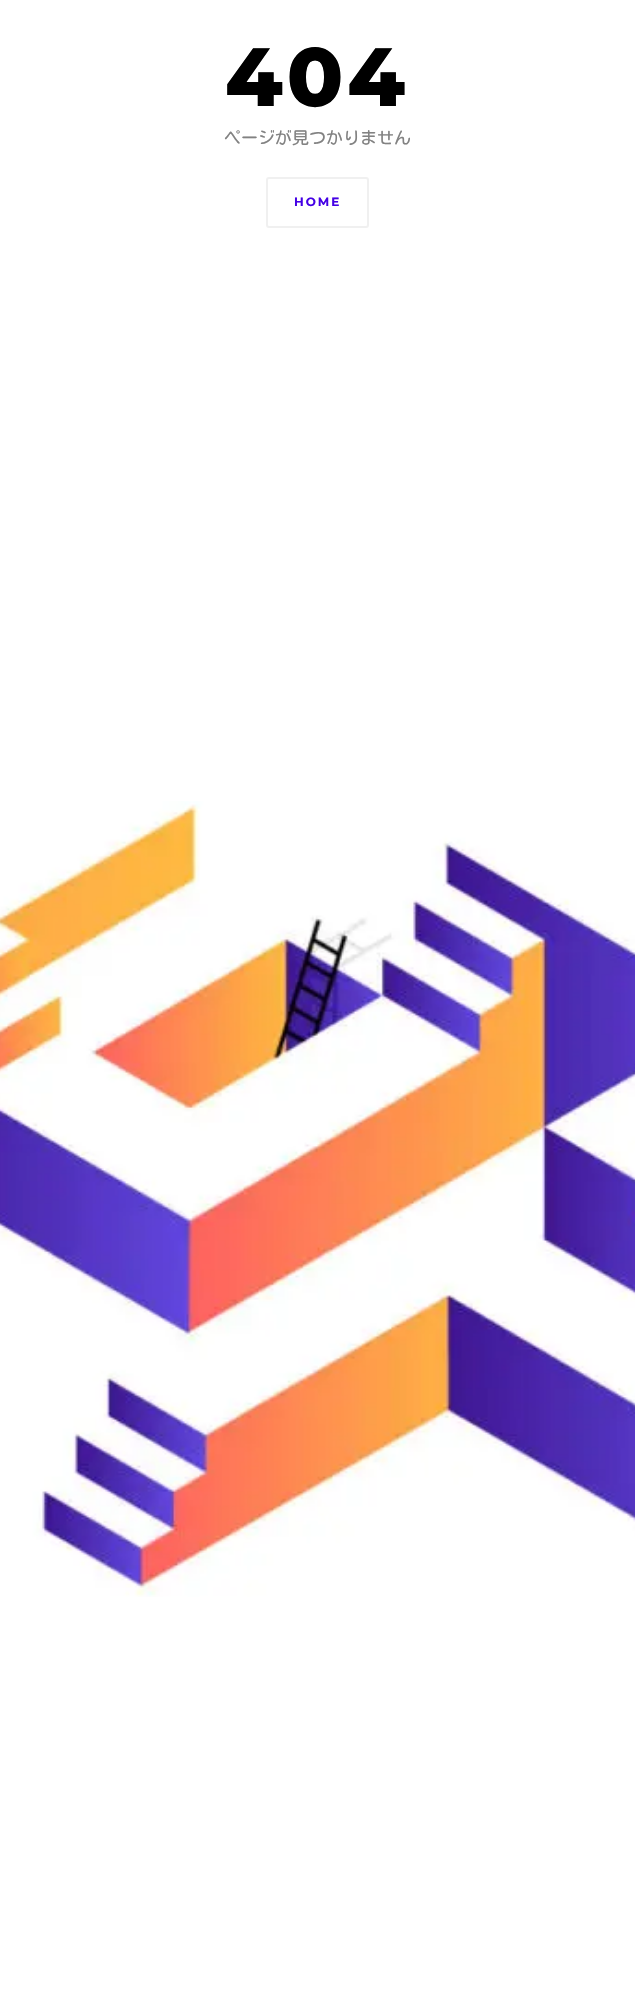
#include "include/core/SkBlurTypes.h"
#include "include/core/SkCanvas.h"
#include "include/core/SkData.h"
#include "include/core/SkFont.h"
#include "include/core/SkFontMgr.h"
#include "include/core/SkImage.h"
#include "include/core/SkMaskFilter.h"
#include "include/core/SkPaint.h"
#include "include/core/SkPathBuilder.h"
#include "include/core/SkTextBlob.h"
#include "include/effects/SkDashPathEffect.h"
#include "include/effects/SkGradientShader.h"
#include "include/utils/SkParsePath.h"

extern sk_sp<SkFontMgr> fontMgr;

static SkFont font(const char* family, int weight, float size, bool italic = false) {
    SkFontStyle style(weight, SkFontStyle::kNormal_Width,
        italic ? SkFontStyle::kItalic_Slant : SkFontStyle::kUpright_Slant);
    SkFont result(fontMgr->matchFamilyStyle(family, style), size);
    result.setSubpixel(true);
    return result;
}

static void drawLabel(SkCanvas* canvas, const char* s, float x, float y, const SkFont& font, SkColor color) {
    SkPaint ink(SkColor4f::FromColor(color));
    ink.setAntiAlias(true);
    canvas->drawString(s, x, y, font, ink);
}

static void drawTracked(SkCanvas* canvas, const char* s, float x, float y, const SkFont& font, const SkPaint& ink, float letter, float word) {
    std::vector<SkGlyphID> glyphs(font.countText(s, strlen(s), SkTextEncoding::kUTF8));
    std::vector<float> xs(glyphs.size());
    font.textToGlyphs(s, strlen(s), SkTextEncoding::kUTF8, glyphs);
    font.getXPos(glyphs, xs, x);
    float extra = 0;
    for (size_t i = 0; i < glyphs.size(); i++) {
        xs[i] += extra;
        extra += letter + word * (glyphs[i] == font.unicharToGlyph(' '));
    }
    canvas->drawTextBlob(SkTextBlob::MakeFromPosHGlyphs(glyphs, xs, y, font), 0, 0, ink);
}

static void drawPhoto(SkCanvas* canvas, const char* path, float x, float y, float w, float h) {
    auto image = SkImages::DeferredFromEncodedData(SkData::MakeFromFileName(path));
    canvas->drawImageRect(image, SkRect::MakeXYWH(x, y, w, h), SkSamplingOptions());
}

void draw(SkCanvas* canvas) {
    SkPaint paint;
    paint.setAntiAlias(true);
    canvas->clear(0xFFFFFFFF);
    drawPhoto(canvas, "assets/img1.png", 0, 801, 635, 796);
    SkFont font1 = font("Montserrat", 800, 82.5f);
    paint.setColor(0xFF000000);
    drawTracked(canvas, "404", 225, 106, font1, paint, 4, 0);
    SkFont font2 = font("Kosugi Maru", 400, 17);
    drawLabel(canvas, "ページが見つかりません", 224, 144, font2, 0xFF828282);
    paint.setStroke(true);
    paint.setStrokeWidth(2);
    paint.setColor(0xFFF0F0F0);
    canvas->drawRoundRect(SkRect::MakeXYWH(267, 178, 101, 49), 2, 2, paint);
    SkFont font3 = font("Montserrat", 700, 12);
    paint.setStroke(false);
    paint.setColor(0xFF4400E5);
    drawTracked(canvas, "HOME", 294, 206, font3, paint, 2, 0);
}
